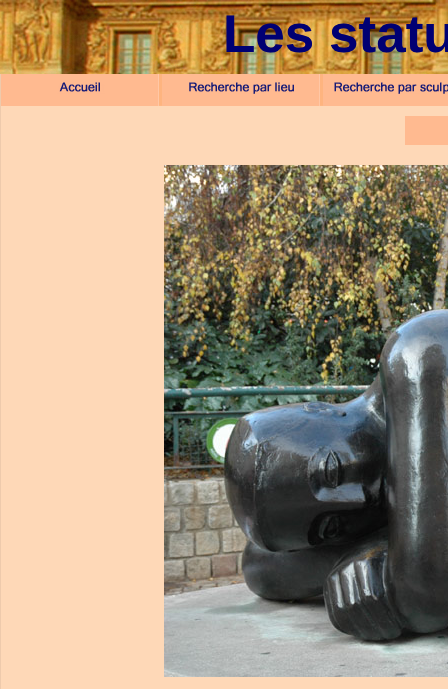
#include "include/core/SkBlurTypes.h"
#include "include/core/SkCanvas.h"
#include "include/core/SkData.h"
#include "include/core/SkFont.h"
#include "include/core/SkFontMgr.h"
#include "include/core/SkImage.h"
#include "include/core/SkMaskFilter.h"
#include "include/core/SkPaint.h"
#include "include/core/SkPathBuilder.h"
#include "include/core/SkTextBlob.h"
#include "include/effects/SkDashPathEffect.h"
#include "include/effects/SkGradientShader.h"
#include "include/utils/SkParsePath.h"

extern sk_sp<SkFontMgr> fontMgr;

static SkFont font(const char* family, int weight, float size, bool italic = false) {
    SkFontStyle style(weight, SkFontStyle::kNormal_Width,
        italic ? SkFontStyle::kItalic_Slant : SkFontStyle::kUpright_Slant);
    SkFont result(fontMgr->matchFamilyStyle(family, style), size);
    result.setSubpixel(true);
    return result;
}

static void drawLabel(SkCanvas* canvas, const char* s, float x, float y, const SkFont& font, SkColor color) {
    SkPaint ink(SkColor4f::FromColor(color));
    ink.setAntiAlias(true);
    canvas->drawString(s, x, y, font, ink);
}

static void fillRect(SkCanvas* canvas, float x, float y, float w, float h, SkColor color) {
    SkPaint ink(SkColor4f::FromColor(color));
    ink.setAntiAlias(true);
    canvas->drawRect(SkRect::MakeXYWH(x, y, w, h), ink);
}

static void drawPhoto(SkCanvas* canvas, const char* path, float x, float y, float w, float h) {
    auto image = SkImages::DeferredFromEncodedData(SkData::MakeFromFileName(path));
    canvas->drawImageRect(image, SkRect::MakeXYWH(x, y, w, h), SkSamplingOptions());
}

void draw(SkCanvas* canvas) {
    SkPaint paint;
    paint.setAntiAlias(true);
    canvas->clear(0xFFFFFFFF);
    drawPhoto(canvas, "assets/img1.png", 0, 0, 448, 74);
    SkFont font1 = font("Liberation Sans", 700, 53);
    drawLabel(canvas, "Les statu", 223, 52, font1, 0xFF000073);
    drawPhoto(canvas, "assets/img2.png", 0, 74, 448, 615);
    drawPhoto(canvas, "assets/img3.png", 1, 74, 158, 32);
    drawPhoto(canvas, "assets/img4.png", 162, 74, 158, 32);
    drawPhoto(canvas, "assets/img5.png", 323, 74, 125, 32);
    fillRect(canvas, 405, 116, 43, 29, 0xFFFFBA90);
    drawPhoto(canvas, "assets/img6.png", 164, 165, 284, 512);
}
